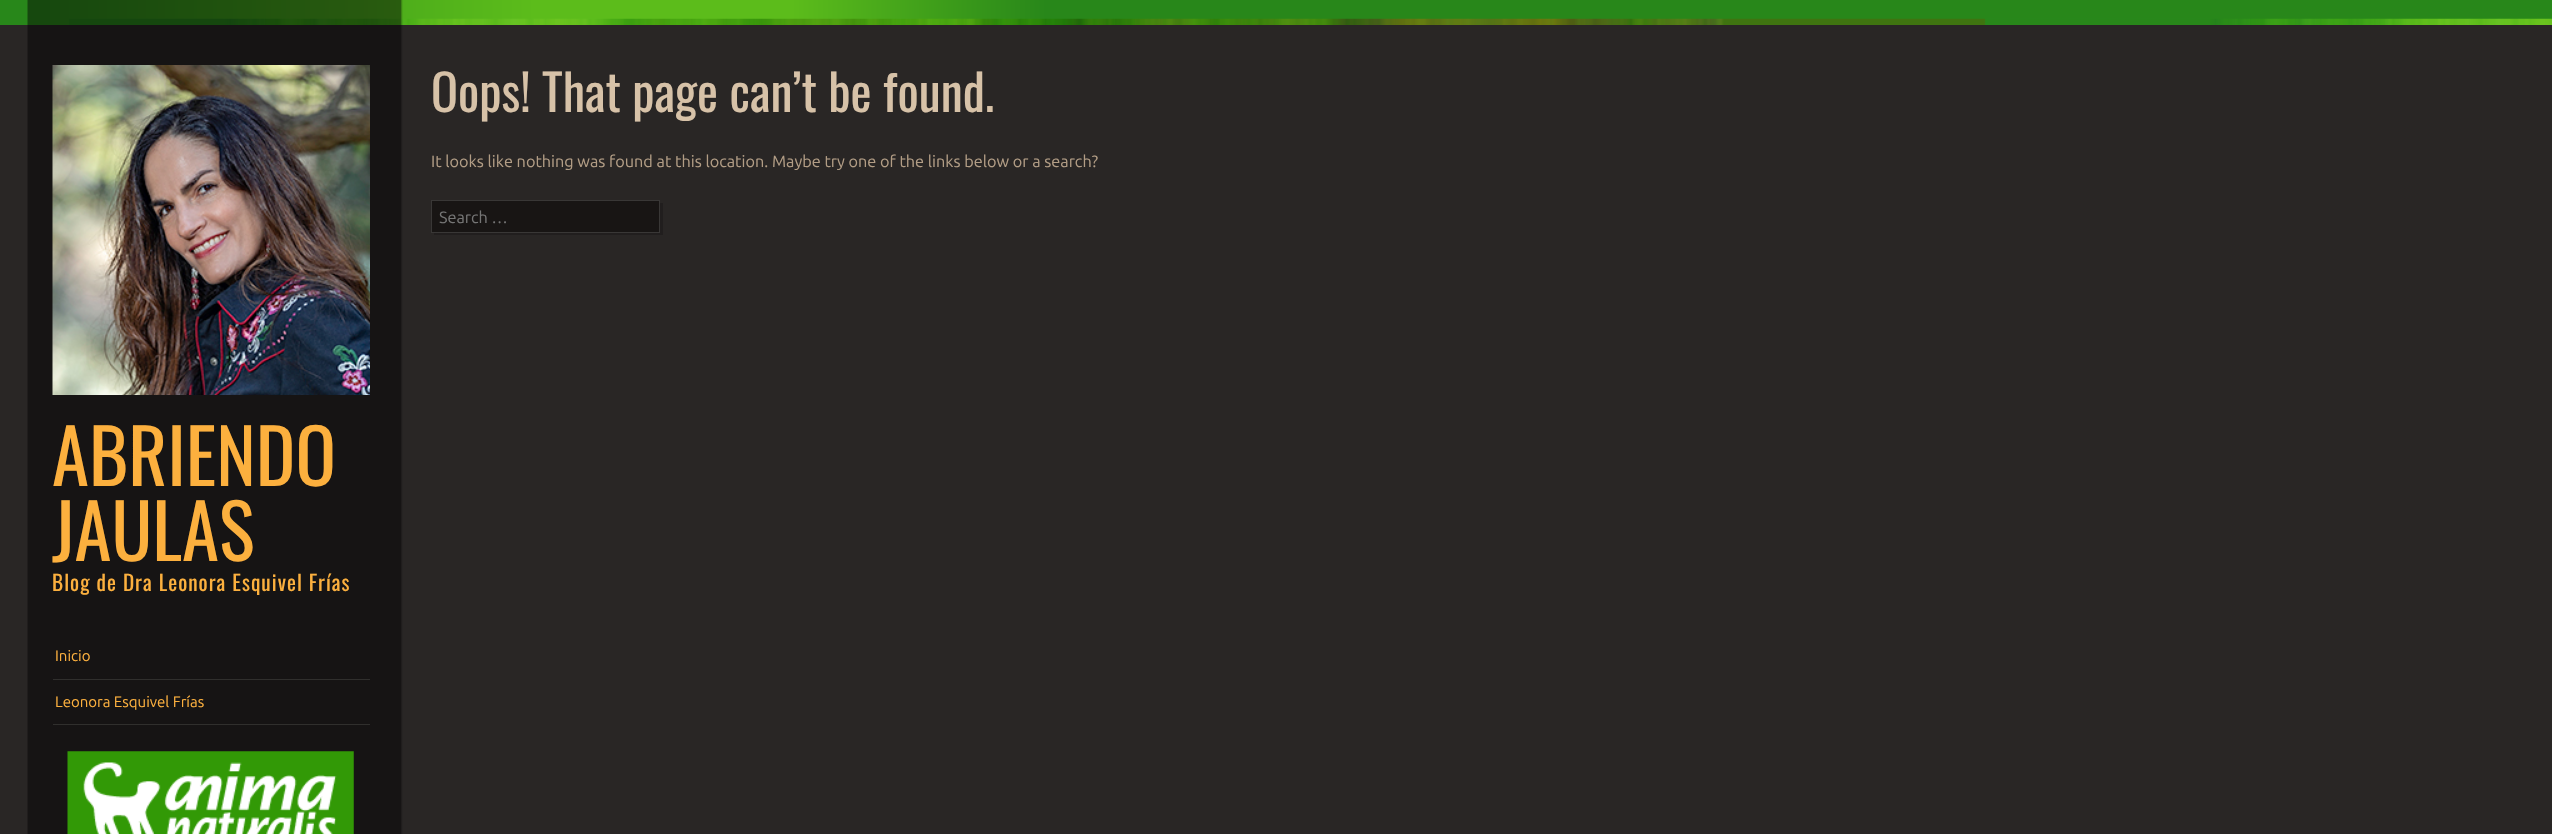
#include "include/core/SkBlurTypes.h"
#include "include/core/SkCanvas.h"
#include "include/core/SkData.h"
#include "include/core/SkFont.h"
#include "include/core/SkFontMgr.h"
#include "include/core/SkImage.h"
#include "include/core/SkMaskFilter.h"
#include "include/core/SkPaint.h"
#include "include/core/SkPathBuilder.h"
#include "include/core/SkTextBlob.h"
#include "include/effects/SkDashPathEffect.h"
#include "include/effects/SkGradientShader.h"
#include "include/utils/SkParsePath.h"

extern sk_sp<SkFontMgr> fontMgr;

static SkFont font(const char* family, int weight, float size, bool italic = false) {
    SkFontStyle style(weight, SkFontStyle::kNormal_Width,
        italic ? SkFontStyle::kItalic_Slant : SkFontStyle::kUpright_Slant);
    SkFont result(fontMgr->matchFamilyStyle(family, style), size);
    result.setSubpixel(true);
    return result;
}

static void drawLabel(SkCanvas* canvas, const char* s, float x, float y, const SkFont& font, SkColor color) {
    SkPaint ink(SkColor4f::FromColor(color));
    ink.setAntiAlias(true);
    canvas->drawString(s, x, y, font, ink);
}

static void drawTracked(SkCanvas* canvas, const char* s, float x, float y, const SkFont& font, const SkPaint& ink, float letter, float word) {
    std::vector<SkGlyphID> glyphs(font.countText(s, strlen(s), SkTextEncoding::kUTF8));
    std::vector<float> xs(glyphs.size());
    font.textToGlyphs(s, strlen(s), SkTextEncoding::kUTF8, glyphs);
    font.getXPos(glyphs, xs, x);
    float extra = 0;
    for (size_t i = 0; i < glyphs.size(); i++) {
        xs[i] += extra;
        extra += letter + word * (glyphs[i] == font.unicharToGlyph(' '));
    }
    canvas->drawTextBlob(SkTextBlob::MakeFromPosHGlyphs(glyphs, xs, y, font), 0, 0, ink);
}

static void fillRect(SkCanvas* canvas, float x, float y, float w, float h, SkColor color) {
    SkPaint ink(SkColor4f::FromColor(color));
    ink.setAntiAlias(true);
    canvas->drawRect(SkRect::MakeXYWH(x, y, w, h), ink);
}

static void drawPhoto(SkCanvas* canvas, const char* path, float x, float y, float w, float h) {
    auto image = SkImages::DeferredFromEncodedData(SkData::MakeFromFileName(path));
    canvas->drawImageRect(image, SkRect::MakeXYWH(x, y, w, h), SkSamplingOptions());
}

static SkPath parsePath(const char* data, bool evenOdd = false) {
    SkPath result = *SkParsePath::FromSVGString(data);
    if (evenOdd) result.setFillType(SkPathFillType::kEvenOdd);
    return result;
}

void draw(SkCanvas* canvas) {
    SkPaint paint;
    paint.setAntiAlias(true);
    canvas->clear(0xFF292625);
    {
        const SkColor colors[] = {0xFF28871A, 0xFF5CBC1B, 0xFF5CBC1B, 0xFF28871A};
        const float stops[] = {0.01f, 0.21f, 0.31f, 0.41f};
        const SkPoint ends[] = {{0, 13}, {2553, 12}};
        paint.setShader(SkGradientShader::MakeLinear(ends, colors, stops, 4, SkTileMode::kClamp));
        paint.setAlpha(255);
    }
    canvas->drawRect(SkRect::MakeXYWH(0, 0, 2552, 25), paint);
    drawPhoto(canvas, "assets/img1.png", 69, 18, 2483, 7);
    drawPhoto(canvas, "assets/img2.png", 27, 0, 376, 834);
    SkFont font1 = font("Oswald", 400, 50);
    drawLabel(canvas, "Oops! That page can’t be found.", 431, 112, font1, 0xFFD7C2A8);
    SkFont font2 = font("Ubuntu", 400, 16.25f);
    drawLabel(canvas, "It looks like nothing was found at this location. Maybe try one of the links below or a search?", 431, 167, font2, 0xFFB29D85);
    paint.setShader(nullptr);
    paint.setColor(0xFF211E1E);
    canvas->drawPath(parsePath("M434 232V235H663V203H660V232Z"), paint);
    paint.setColor(0xFF181514);
    canvas->drawRect(SkRect::MakeXYWH(431.5f, 200.5f, 228, 32), paint);
    paint.setStroke(true);
    paint.setStrokeWidth(1);
    paint.setColor(0xFF393736);
    canvas->drawRect(SkRect::MakeXYWH(431.5f, 200.5f, 228, 32), paint);
    drawLabel(canvas, "Search …", 439, 223, font2, 0xFF757575);
    drawPhoto(canvas, "assets/img3.png", 52, 65, 318, 330);
    SkFont font3 = font("Oswald", 400, 75);
    drawLabel(canvas, "ABRIENDO", 52, 486, font3, 0xFFFCB03E);
    drawLabel(canvas, "JAULAS", 52, 561, font3, 0xFFFCB03E);
    SkFont font4 = font("Oswald", 400, 21.25f);
    paint.setStroke(false);
    paint.setColor(0xFFFCB03E);
    drawTracked(canvas, "Blog de Dra Leonora Esquivel Frías", 52, 591, font4, paint, 1.05f, 0);
    fillRect(canvas, 53, 679, 317, 1, 0xFF302F2D);
    SkFont font5 = font("Ubuntu", 400, 15);
    drawLabel(canvas, "Inicio", 55, 661, font5, 0xFFFCB03E);
    fillRect(canvas, 53, 724, 317, 1, 0xFF302F2D);
    drawLabel(canvas, "Leonora Esquivel Frías", 55, 707, font5, 0xFFFCB03E);
    drawPhoto(canvas, "assets/img4.png", 67, 751, 287, 83);
}
